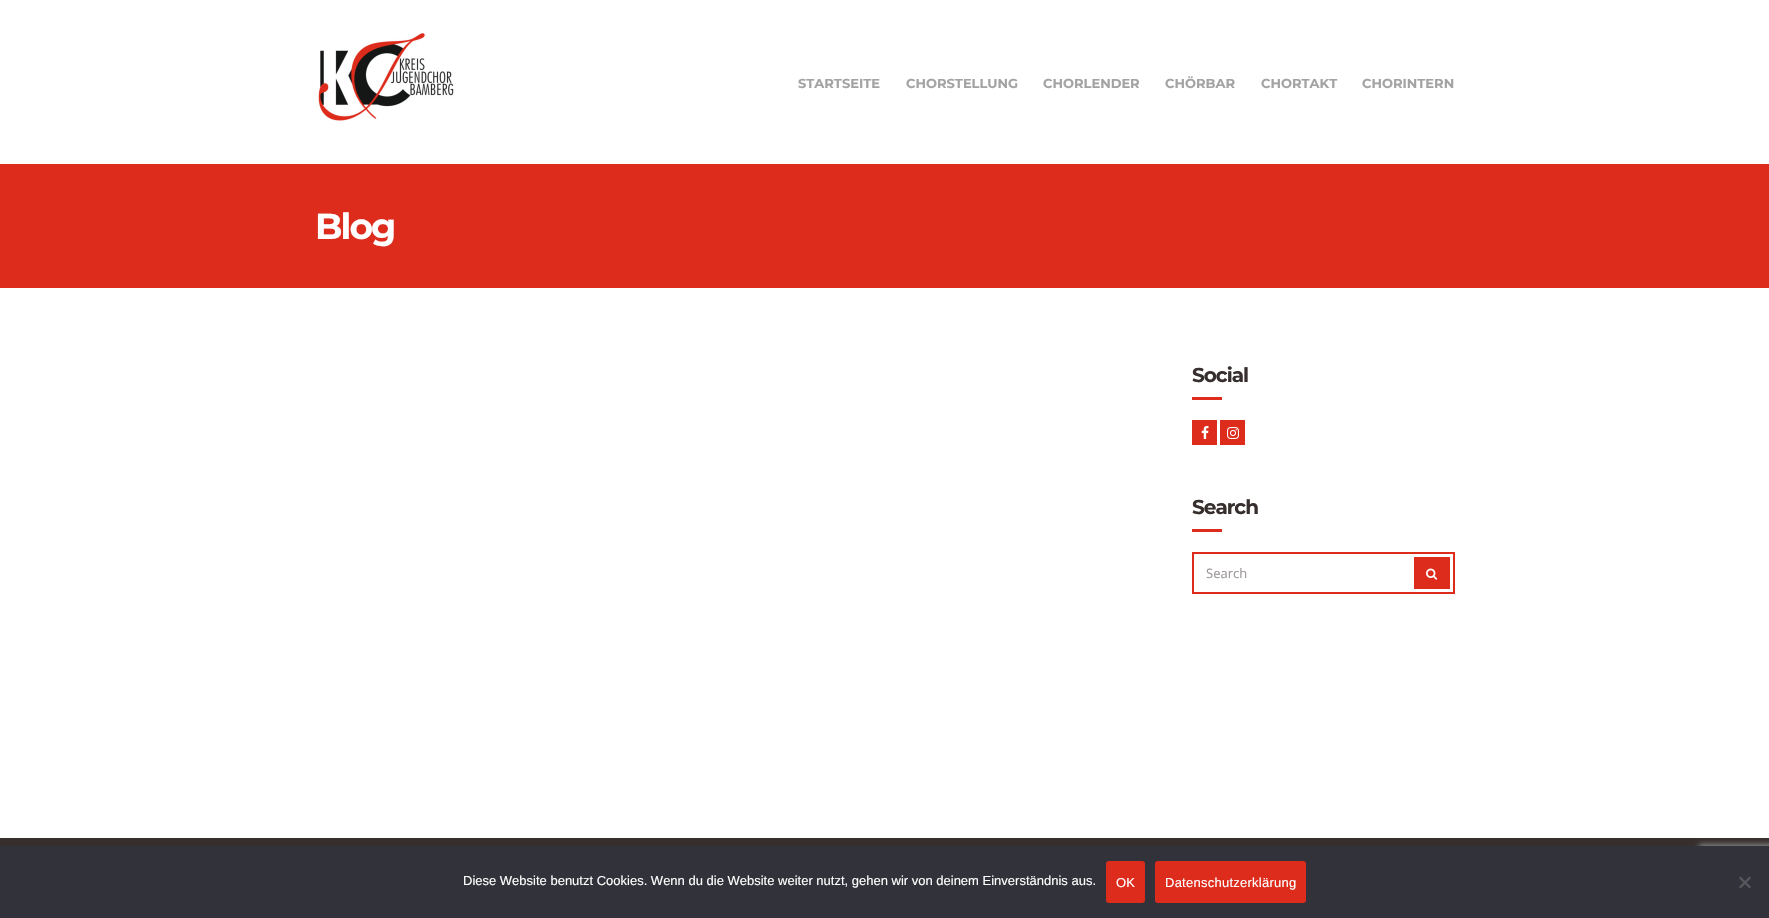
#include "include/core/SkBlurTypes.h"
#include "include/core/SkCanvas.h"
#include "include/core/SkData.h"
#include "include/core/SkFont.h"
#include "include/core/SkFontMgr.h"
#include "include/core/SkImage.h"
#include "include/core/SkMaskFilter.h"
#include "include/core/SkPaint.h"
#include "include/core/SkPathBuilder.h"
#include "include/core/SkTextBlob.h"
#include "include/effects/SkDashPathEffect.h"
#include "include/effects/SkGradientShader.h"
#include "include/utils/SkParsePath.h"

extern sk_sp<SkFontMgr> fontMgr;

static SkFont font(const char* family, int weight, float size, bool italic = false) {
    SkFontStyle style(weight, SkFontStyle::kNormal_Width,
        italic ? SkFontStyle::kItalic_Slant : SkFontStyle::kUpright_Slant);
    SkFont result(fontMgr->matchFamilyStyle(family, style), size);
    result.setSubpixel(true);
    return result;
}

static void drawLabel(SkCanvas* canvas, const char* s, float x, float y, const SkFont& font, SkColor color) {
    SkPaint ink(SkColor4f::FromColor(color));
    ink.setAntiAlias(true);
    canvas->drawString(s, x, y, font, ink);
}

static void drawTracked(SkCanvas* canvas, const char* s, float x, float y, const SkFont& font, const SkPaint& ink, float letter, float word) {
    std::vector<SkGlyphID> glyphs(font.countText(s, strlen(s), SkTextEncoding::kUTF8));
    std::vector<float> xs(glyphs.size());
    font.textToGlyphs(s, strlen(s), SkTextEncoding::kUTF8, glyphs);
    font.getXPos(glyphs, xs, x);
    float extra = 0;
    for (size_t i = 0; i < glyphs.size(); i++) {
        xs[i] += extra;
        extra += letter + word * (glyphs[i] == font.unicharToGlyph(' '));
    }
    canvas->drawTextBlob(SkTextBlob::MakeFromPosHGlyphs(glyphs, xs, y, font), 0, 0, ink);
}

static void fillRect(SkCanvas* canvas, float x, float y, float w, float h, SkColor color) {
    SkPaint ink(SkColor4f::FromColor(color));
    ink.setAntiAlias(true);
    canvas->drawRect(SkRect::MakeXYWH(x, y, w, h), ink);
}

static void fillRRect(SkCanvas* canvas, float x, float y, float w, float h, float radius, SkColor color) {
    SkPaint ink(SkColor4f::FromColor(color));
    ink.setAntiAlias(true);
    canvas->drawRoundRect(SkRect::MakeXYWH(x, y, w, h), radius, radius, ink);
}

static void drawPhoto(SkCanvas* canvas, const char* path, float x, float y, float w, float h) {
    auto image = SkImages::DeferredFromEncodedData(SkData::MakeFromFileName(path));
    canvas->drawImageRect(image, SkRect::MakeXYWH(x, y, w, h), SkSamplingOptions());
}

static SkPath parsePath(const char* data, bool evenOdd = false) {
    SkPath result = *SkParsePath::FromSVGString(data);
    if (evenOdd) result.setFillType(SkPathFillType::kEvenOdd);
    return result;
}

void draw(SkCanvas* canvas) {
    SkPaint paint;
    paint.setAntiAlias(true);
    canvas->clear(0xFFFFFFFF);
    drawPhoto(canvas, "assets/img1.png", 318, 33, 136, 88);
    SkFont font1 = font("Montserrat", 100, 13);
    drawLabel(canvas, "STARTSEITE", 798, 88, font1, 0xFFA3A3A3);
    drawLabel(canvas, "CHORSTELLUNG", 906, 88, font1, 0xFFA3A3A3);
    drawLabel(canvas, "CHORLENDER", 1043, 88, font1, 0xFFA3A3A3);
    drawLabel(canvas, "CHÖRBAR", 1165, 88, font1, 0xFFA3A3A3);
    drawLabel(canvas, "CHORTAKT", 1261, 88, font1, 0xFFA3A3A3);
    drawLabel(canvas, "CHORINTERN", 1362, 88, font1, 0xFFA3A3A3);
    fillRect(canvas, 0, 164, 1769, 124, 0xFFDD2B1C);
    SkFont font2 = font("Montserrat", 100, 36);
    paint.setColor(0xFFFFFFFF);
    drawTracked(canvas, "Blog", 315, 239, font2, paint, -2, 0);
    SkFont font3 = font("Montserrat", 100, 20);
    paint.setColor(0xFF362F2D);
    drawTracked(canvas, "Social", 1192, 382, font3, paint, -1, 0);
    fillRect(canvas, 1192, 397, 30, 3, 0xFFDD2B1C);
    fillRect(canvas, 1192, 420, 25, 25, 0xFFDD2B1C);
    drawPhoto(canvas, "assets/img2.png", 1201, 426, 8, 13);
    fillRect(canvas, 1220, 420, 25, 25, 0xFFDD2B1C);
    drawPhoto(canvas, "assets/img3.png", 1227, 427, 12, 12);
    drawTracked(canvas, "Search", 1192, 514, font3, paint, -1, 0);
    fillRect(canvas, 1192, 529, 30, 3, 0xFFDD2B1C);
    paint.setStroke(true);
    paint.setStrokeWidth(2);
    paint.setColor(0xFFDD2B1C);
    canvas->drawRect(SkRect::MakeXYWH(1193, 553, 261, 40), paint);
    SkFont font4 = font("Open Sans", 400, 13);
    drawLabel(canvas, "Search", 1206, 578, font4, 0xFF9B9796);
    fillRect(canvas, 1414, 557, 36, 32, 0xFFDD2B1C);
    drawPhoto(canvas, "assets/img4.png", 1426, 568, 12, 12);
    fillRect(canvas, 0, 838, 1769, 8, 0xFF362F2D);
    paint.setStroke(false);
    paint.setColor(0xFF808080);
    paint.setMaskFilter(SkMaskFilter::MakeBlur(kNormal_SkBlurStyle, 2.5f));
    canvas->drawRoundRect(SkRect::MakeXYWH(1699, 844, 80, 60), 2, 2, paint);
    paint.setMaskFilter(nullptr);
    fillRect(canvas, 0, 846, 1769, 72, 0xFF32323A);
    SkFont font5 = font("Liberation Sans", 400, 13);
    drawLabel(canvas, "Diese Website benutzt Cookies. Wenn du die Website weiter nutzt, gehen wir von deinem Einverständnis aus.", 463, 885, font5, 0xFFFFFFFF);
    fillRRect(canvas, 1106, 861, 39, 42, 3, 0xFFDD2B1C);
    paint.setColor(0xFFFFFFFF);
    drawTracked(canvas, "OK", 1116, 887, font5, paint, 0.25f, 0);
    fillRRect(canvas, 1155, 861, 151, 42, 3, 0xFFDD2B1C);
    drawTracked(canvas, "Datenschutzerklärung", 1165, 887, font5, paint, 0.25f, 0);
    paint.setColor(0xFF59595D);
    canvas->drawPath(parsePath("M1749.5 876.5L1751 878L1740.5 888.5L1739 887Z"), paint);
    canvas->drawPath(parsePath("M1739 878L1740.5 876.5L1751 887L1749.5 888.5Z"), paint);
}
